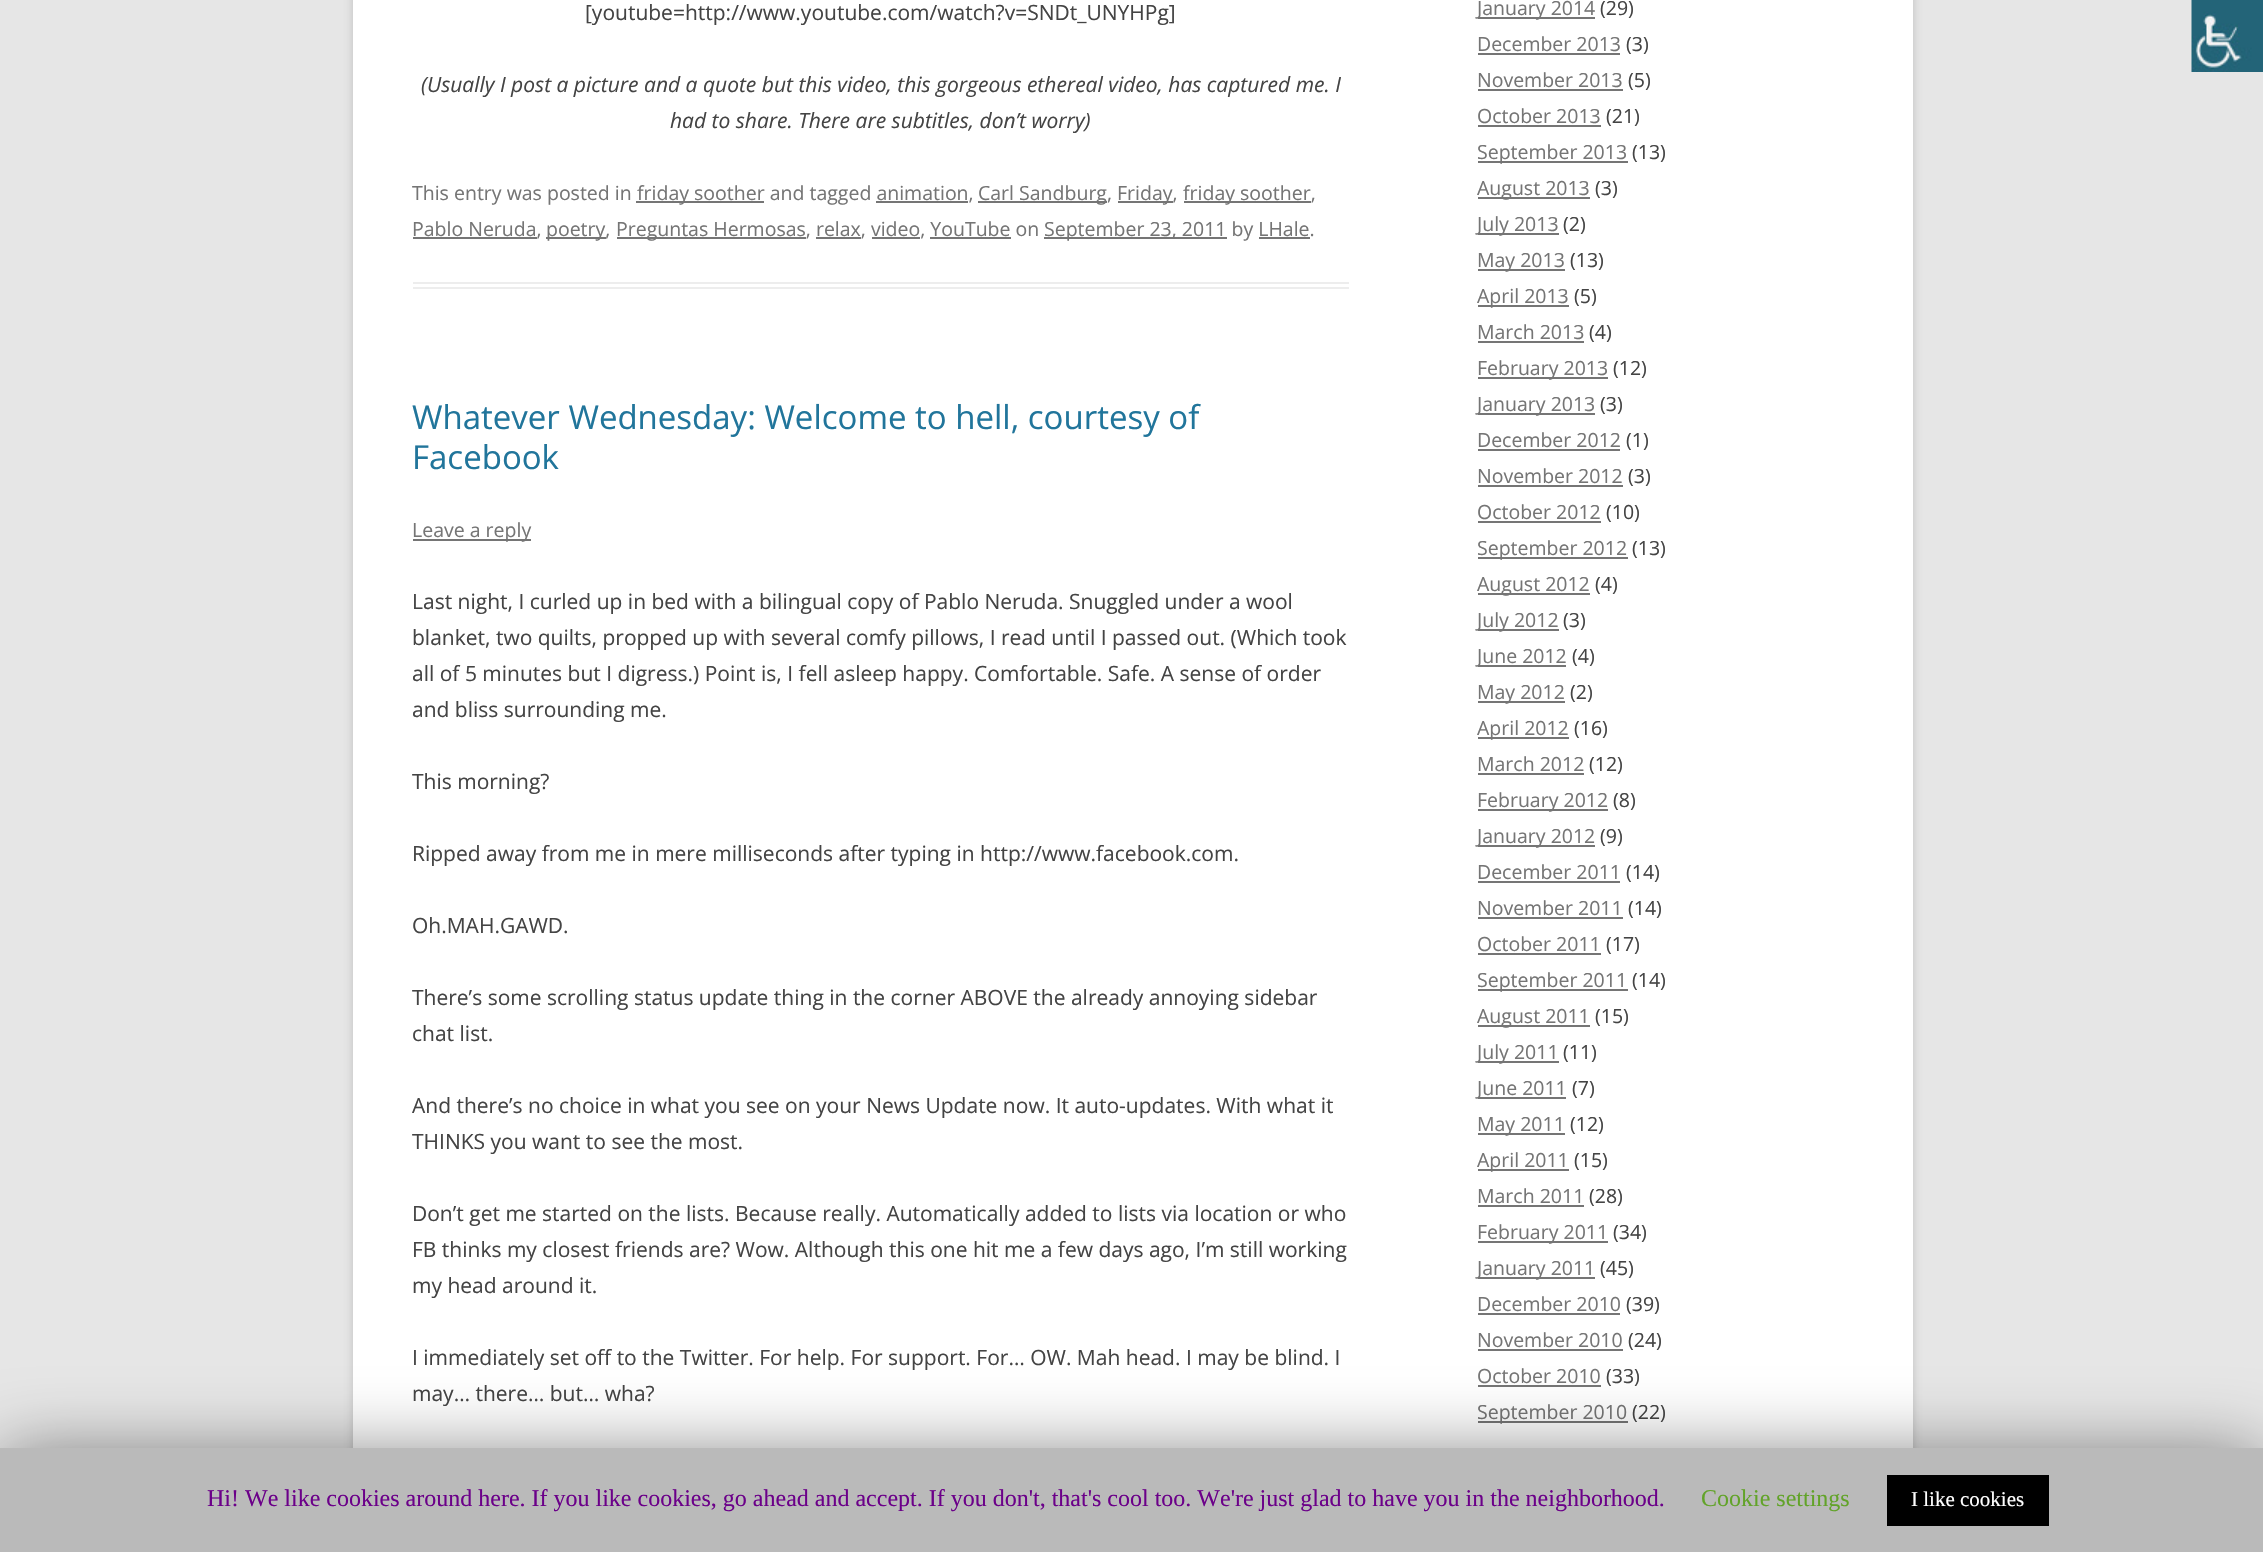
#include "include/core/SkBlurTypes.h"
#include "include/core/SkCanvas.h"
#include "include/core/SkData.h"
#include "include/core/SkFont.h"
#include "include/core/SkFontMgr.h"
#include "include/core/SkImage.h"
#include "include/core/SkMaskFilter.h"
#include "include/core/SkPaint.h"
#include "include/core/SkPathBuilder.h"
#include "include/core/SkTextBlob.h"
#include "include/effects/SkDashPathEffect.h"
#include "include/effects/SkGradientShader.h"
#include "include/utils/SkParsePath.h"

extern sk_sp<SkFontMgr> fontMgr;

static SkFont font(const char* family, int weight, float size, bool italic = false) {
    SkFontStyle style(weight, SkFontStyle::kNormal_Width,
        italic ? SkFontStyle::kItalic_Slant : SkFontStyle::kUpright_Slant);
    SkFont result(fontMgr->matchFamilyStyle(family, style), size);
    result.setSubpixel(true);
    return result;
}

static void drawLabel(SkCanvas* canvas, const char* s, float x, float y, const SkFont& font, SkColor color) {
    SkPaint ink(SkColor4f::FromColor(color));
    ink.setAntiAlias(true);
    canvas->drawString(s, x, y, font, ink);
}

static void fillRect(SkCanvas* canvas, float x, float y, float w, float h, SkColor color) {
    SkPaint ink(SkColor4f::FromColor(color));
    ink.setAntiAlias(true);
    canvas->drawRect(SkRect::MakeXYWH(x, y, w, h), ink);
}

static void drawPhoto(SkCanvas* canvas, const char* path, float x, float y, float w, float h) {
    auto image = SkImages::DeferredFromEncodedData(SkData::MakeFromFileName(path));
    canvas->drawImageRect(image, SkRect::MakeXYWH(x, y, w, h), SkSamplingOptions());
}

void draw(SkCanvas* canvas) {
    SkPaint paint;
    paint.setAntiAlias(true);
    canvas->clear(0xFFE6E6E6);
    paint.setColor(0x4D646464);
    paint.setMaskFilter(SkMaskFilter::MakeBlur(kNormal_SkBlurStyle, 4.5f));
    canvas->drawRect(SkRect::MakeXYWH(353, -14, 1560, 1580), paint);
    paint.setMaskFilter(nullptr);
    fillRect(canvas, 353, 0, 1560, 1448, 0xFFFFFFFF);
    fillRect(canvas, 413, 282, 936, 2, 0xFFEDEDED);
    fillRect(canvas, 413, 287, 936, 2, 0xFFEDEDED);
    SkFont font1 = font("Open Sans", 400, 21);
    drawLabel(canvas, "[youtube=http://www.youtube.com/watch?v=SNDt_UNYHPg]", 585, 20, font1, 0xFF444444);
    SkFont font2 = font("Open Sans", 400, 21, true);
    drawLabel(canvas, "(Usually I post a picture and a quote but this video, this gorgeous ethereal video, has captured me. I", 421, 92, font2, 0xFF444444);
    drawLabel(canvas, "had to share. There are subtitles, don’t worry)", 670, 128, font2, 0xFF444444);
    SkFont font3 = font("Open Sans", 400, 19.5f);
    drawLabel(canvas, "This entry was posted in", 412, 200, font3, 0xFF757575);
    fillRect(canvas, 636, 201, 128, 2, 0xFF757575);
    drawLabel(canvas, "friday soother and tagged animation,", 637, 200, font3, 0xFF757575);
    fillRect(canvas, 978, 201, 129, 2, 0xFF757575);
    drawLabel(canvas, "Carl Sandburg,", 978, 200, font3, 0xFF757575);
    fillRect(canvas, 1118, 201, 55, 2, 0xFF757575);
    drawLabel(canvas, "Friday,", 1117, 200, font3, 0xFF757575);
    fillRect(canvas, 1184, 201, 127, 2, 0xFF757575);
    drawLabel(canvas, "friday soother,", 1183, 200, font3, 0xFF757575);
    fillRect(canvas, 876, 201, 92, 2, 0xFF757575);
    fillRect(canvas, 413, 237, 124, 2, 0xFF757575);
    drawLabel(canvas, "Pablo Neruda,", 412, 236, font3, 0xFF757575);
    fillRect(canvas, 546, 237, 60, 2, 0xFF757575);
    drawLabel(canvas, "poetry,", 546, 236, font3, 0xFF757575);
    fillRect(canvas, 617, 237, 189, 2, 0xFF757575);
    drawLabel(canvas, "Preguntas Hermosas, relax, video, YouTube on", 616, 236, font3, 0xFF757575);
    fillRect(canvas, 1044, 237, 183, 2, 0xFF757575);
    drawLabel(canvas, "September 23, 2011 by LHale.", 1044, 236, font3, 0xFF757575);
    fillRect(canvas, 816, 237, 45, 2, 0xFF757575);
    fillRect(canvas, 872, 237, 48, 2, 0xFF757575);
    fillRect(canvas, 930, 237, 81, 2, 0xFF757575);
    fillRect(canvas, 1259, 237, 51, 2, 0xFF757575);
    SkFont font4 = font("Open Sans", 400, 33);
    drawLabel(canvas, "Whatever Wednesday: Welcome to hell, courtesy of", 412, 429, font4, 0xFF21759B);
    drawLabel(canvas, "Facebook", 412, 469, font4, 0xFF21759B);
    fillRect(canvas, 413, 539, 118, 2, 0xFF757575);
    drawLabel(canvas, "Leave a reply", 412, 537, font3, 0xFF757575);
    drawLabel(canvas, "Last night, I curled up in bed with a bilingual copy of Pablo Neruda. Snuggled under a wool", 412, 609, font1, 0xFF444444);
    drawLabel(canvas, "blanket, two quilts, propped up with several comfy pillows, I read until I passed out. (Which took", 412, 645, font1, 0xFF444444);
    drawLabel(canvas, "all of 5 minutes but I digress.) Point is, I fell asleep happy. Comfortable. Safe. A sense of order", 412, 681, font1, 0xFF444444);
    drawLabel(canvas, "and bliss surrounding me.", 412, 717, font1, 0xFF444444);
    drawLabel(canvas, "This morning?", 412, 789, font1, 0xFF444444);
    drawLabel(canvas, "Ripped away from me in mere milliseconds after typing in http://www.facebook.com.", 412, 861, font1, 0xFF444444);
    drawLabel(canvas, "Oh.MAH.GAWD.", 412, 933, font1, 0xFF444444);
    drawLabel(canvas, "There’s some scrolling status update thing in the corner ABOVE the already annoying sidebar", 412, 1005, font1, 0xFF444444);
    drawLabel(canvas, "chat list.", 412, 1041, font1, 0xFF444444);
    drawLabel(canvas, "And there’s no choice in what you see on your News Update now. It auto-updates. With what it", 412, 1113, font1, 0xFF444444);
    drawLabel(canvas, "THINKS you want to see the most.", 412, 1149, font1, 0xFF444444);
    drawLabel(canvas, "Don’t get me started on the lists. Because really. Automatically added to lists via location or who", 412, 1221, font1, 0xFF444444);
    drawLabel(canvas, "FB thinks my closest friends are? Wow. Although this one hit me a few days ago, I’m still working", 412, 1257, font1, 0xFF444444);
    drawLabel(canvas, "my head around it.", 412, 1293, font1, 0xFF444444);
    drawLabel(canvas, "I immediately set off to the Twitter. For help. For support. For… OW. Mah head. I may be blind. I", 412, 1365, font1, 0xFF444444);
    drawLabel(canvas, "may… there… but… wha?", 412, 1401, font1, 0xFF444444);
    fillRect(canvas, 1478, 17, 117, 2, 0xFF757575);
    drawLabel(canvas, "January 2014", 1477, 15, font3, 0xFF757575);
    drawLabel(canvas, "(29)", 1600, 15, font3, 0xFF444444);
    drawLabel(canvas, "December 2013", 1477, 51, font3, 0xFF757575);
    fillRect(canvas, 1478, 53, 142, 2, 0xFF757575);
    drawLabel(canvas, "(3)", 1626, 51, font3, 0xFF444444);
    drawLabel(canvas, "November 2013", 1477, 87, font3, 0xFF757575);
    fillRect(canvas, 1478, 89, 145, 2, 0xFF757575);
    drawLabel(canvas, "(5)", 1628, 87, font3, 0xFF444444);
    drawLabel(canvas, "October 2013", 1477, 123, font3, 0xFF757575);
    fillRect(canvas, 1478, 125, 123, 2, 0xFF757575);
    drawLabel(canvas, "(21)", 1606, 123, font3, 0xFF444444);
    fillRect(canvas, 1478, 161, 150, 2, 0xFF757575);
    drawLabel(canvas, "September 2013", 1477, 159, font3, 0xFF757575);
    drawLabel(canvas, "(13)", 1632, 159, font3, 0xFF444444);
    fillRect(canvas, 1478, 197, 112, 2, 0xFF757575);
    drawLabel(canvas, "August 2013", 1477, 195, font3, 0xFF757575);
    drawLabel(canvas, "(3)", 1595, 195, font3, 0xFF444444);
    fillRect(canvas, 1478, 233, 81, 2, 0xFF757575);
    drawLabel(canvas, "July 2013", 1477, 231, font3, 0xFF757575);
    drawLabel(canvas, "(2)", 1563, 231, font3, 0xFF444444);
    fillRect(canvas, 1478, 269, 87, 2, 0xFF757575);
    drawLabel(canvas, "May 2013", 1477, 267, font3, 0xFF757575);
    drawLabel(canvas, "(13)", 1570, 267, font3, 0xFF444444);
    fillRect(canvas, 1478, 305, 91, 2, 0xFF757575);
    drawLabel(canvas, "April 2013", 1477, 303, font3, 0xFF757575);
    drawLabel(canvas, "(5)", 1574, 303, font3, 0xFF444444);
    drawLabel(canvas, "March 2013", 1477, 339, font3, 0xFF757575);
    fillRect(canvas, 1478, 341, 106, 2, 0xFF757575);
    drawLabel(canvas, "(4)", 1589, 339, font3, 0xFF444444);
    fillRect(canvas, 1478, 377, 130, 2, 0xFF757575);
    drawLabel(canvas, "February 2013", 1477, 375, font3, 0xFF757575);
    drawLabel(canvas, "(12)", 1613, 375, font3, 0xFF444444);
    fillRect(canvas, 1478, 413, 117, 2, 0xFF757575);
    drawLabel(canvas, "January 2013", 1477, 411, font3, 0xFF757575);
    drawLabel(canvas, "(3)", 1600, 411, font3, 0xFF444444);
    drawLabel(canvas, "December 2012", 1477, 447, font3, 0xFF757575);
    fillRect(canvas, 1478, 449, 142, 2, 0xFF757575);
    drawLabel(canvas, "(1)", 1626, 447, font3, 0xFF444444);
    drawLabel(canvas, "November 2012", 1477, 483, font3, 0xFF757575);
    fillRect(canvas, 1478, 485, 145, 2, 0xFF757575);
    drawLabel(canvas, "(3)", 1628, 483, font3, 0xFF444444);
    drawLabel(canvas, "October 2012", 1477, 519, font3, 0xFF757575);
    fillRect(canvas, 1478, 521, 123, 2, 0xFF757575);
    drawLabel(canvas, "(10)", 1606, 519, font3, 0xFF444444);
    fillRect(canvas, 1478, 557, 150, 2, 0xFF757575);
    drawLabel(canvas, "September 2012", 1477, 555, font3, 0xFF757575);
    drawLabel(canvas, "(13)", 1632, 555, font3, 0xFF444444);
    fillRect(canvas, 1478, 593, 112, 2, 0xFF757575);
    drawLabel(canvas, "August 2012", 1477, 591, font3, 0xFF757575);
    drawLabel(canvas, "(4)", 1595, 591, font3, 0xFF444444);
    fillRect(canvas, 1478, 629, 81, 2, 0xFF757575);
    drawLabel(canvas, "July 2012", 1477, 627, font3, 0xFF757575);
    drawLabel(canvas, "(3)", 1563, 627, font3, 0xFF444444);
    fillRect(canvas, 1478, 665, 88, 2, 0xFF757575);
    drawLabel(canvas, "June 2012", 1477, 663, font3, 0xFF757575);
    drawLabel(canvas, "(4)", 1572, 663, font3, 0xFF444444);
    fillRect(canvas, 1478, 701, 87, 2, 0xFF757575);
    drawLabel(canvas, "May 2012", 1477, 699, font3, 0xFF757575);
    drawLabel(canvas, "(2)", 1570, 699, font3, 0xFF444444);
    fillRect(canvas, 1478, 737, 91, 2, 0xFF757575);
    drawLabel(canvas, "April 2012", 1477, 735, font3, 0xFF757575);
    drawLabel(canvas, "(16)", 1574, 735, font3, 0xFF444444);
    drawLabel(canvas, "March 2012", 1477, 771, font3, 0xFF757575);
    fillRect(canvas, 1478, 773, 106, 2, 0xFF757575);
    drawLabel(canvas, "(12)", 1589, 771, font3, 0xFF444444);
    fillRect(canvas, 1478, 809, 130, 2, 0xFF757575);
    drawLabel(canvas, "February 2012", 1477, 807, font3, 0xFF757575);
    drawLabel(canvas, "(8)", 1613, 807, font3, 0xFF444444);
    fillRect(canvas, 1478, 845, 117, 2, 0xFF757575);
    drawLabel(canvas, "January 2012", 1477, 843, font3, 0xFF757575);
    drawLabel(canvas, "(9)", 1600, 843, font3, 0xFF444444);
    drawLabel(canvas, "December 2011", 1477, 879, font3, 0xFF757575);
    fillRect(canvas, 1478, 881, 142, 2, 0xFF757575);
    drawLabel(canvas, "(14)", 1626, 879, font3, 0xFF444444);
    drawLabel(canvas, "November 2011", 1477, 915, font3, 0xFF757575);
    fillRect(canvas, 1478, 917, 145, 2, 0xFF757575);
    drawLabel(canvas, "(14)", 1628, 915, font3, 0xFF444444);
    drawLabel(canvas, "October 2011", 1477, 951, font3, 0xFF757575);
    fillRect(canvas, 1478, 953, 123, 2, 0xFF757575);
    drawLabel(canvas, "(17)", 1606, 951, font3, 0xFF444444);
    fillRect(canvas, 1478, 989, 150, 2, 0xFF757575);
    drawLabel(canvas, "September 2011", 1477, 987, font3, 0xFF757575);
    drawLabel(canvas, "(14)", 1632, 987, font3, 0xFF444444);
    fillRect(canvas, 1478, 1025, 112, 2, 0xFF757575);
    drawLabel(canvas, "August 2011", 1477, 1023, font3, 0xFF757575);
    drawLabel(canvas, "(15)", 1595, 1023, font3, 0xFF444444);
    fillRect(canvas, 1478, 1061, 81, 2, 0xFF757575);
    drawLabel(canvas, "July 2011", 1477, 1059, font3, 0xFF757575);
    drawLabel(canvas, "(11)", 1563, 1059, font3, 0xFF444444);
    fillRect(canvas, 1478, 1097, 88, 2, 0xFF757575);
    drawLabel(canvas, "June 2011", 1477, 1095, font3, 0xFF757575);
    drawLabel(canvas, "(7)", 1572, 1095, font3, 0xFF444444);
    fillRect(canvas, 1478, 1133, 87, 2, 0xFF757575);
    drawLabel(canvas, "May 2011", 1477, 1131, font3, 0xFF757575);
    drawLabel(canvas, "(12)", 1570, 1131, font3, 0xFF444444);
    fillRect(canvas, 1478, 1169, 91, 2, 0xFF757575);
    drawLabel(canvas, "April 2011", 1477, 1167, font3, 0xFF757575);
    drawLabel(canvas, "(15)", 1574, 1167, font3, 0xFF444444);
    drawLabel(canvas, "March 2011", 1477, 1203, font3, 0xFF757575);
    fillRect(canvas, 1478, 1205, 106, 2, 0xFF757575);
    drawLabel(canvas, "(28)", 1589, 1203, font3, 0xFF444444);
    fillRect(canvas, 1478, 1241, 130, 2, 0xFF757575);
    drawLabel(canvas, "February 2011", 1477, 1239, font3, 0xFF757575);
    drawLabel(canvas, "(34)", 1613, 1239, font3, 0xFF444444);
    fillRect(canvas, 1478, 1277, 117, 2, 0xFF757575);
    drawLabel(canvas, "January 2011", 1477, 1275, font3, 0xFF757575);
    drawLabel(canvas, "(45)", 1600, 1275, font3, 0xFF444444);
    drawLabel(canvas, "December 2010", 1477, 1311, font3, 0xFF757575);
    fillRect(canvas, 1478, 1313, 142, 2, 0xFF757575);
    drawLabel(canvas, "(39)", 1626, 1311, font3, 0xFF444444);
    drawLabel(canvas, "November 2010", 1477, 1347, font3, 0xFF757575);
    fillRect(canvas, 1478, 1349, 145, 2, 0xFF757575);
    drawLabel(canvas, "(24)", 1628, 1347, font3, 0xFF444444);
    drawLabel(canvas, "October 2010", 1477, 1383, font3, 0xFF757575);
    fillRect(canvas, 1478, 1385, 123, 2, 0xFF757575);
    drawLabel(canvas, "(33)", 1606, 1383, font3, 0xFF444444);
    fillRect(canvas, 1478, 1421, 150, 2, 0xFF757575);
    drawLabel(canvas, "September 2010", 1477, 1419, font3, 0xFF757575);
    drawLabel(canvas, "(22)", 1632, 1419, font3, 0xFF444444);
    drawPhoto(canvas, "assets/img1.png", 2191, 0, 72, 72);
    paint.setColor(0x80000000);
    paint.setMaskFilter(SkMaskFilter::MakeBlur(kNormal_SkBlurStyle, 37.5f));
    canvas->drawRect(SkRect::MakeXYWH(0, 1455, 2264, 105), paint);
    paint.setMaskFilter(nullptr);
    fillRect(canvas, 0, 1448, 2263, 104, 0xFFBABABA);
    SkFont font5 = font("Liberation Serif", 400, 24);
    drawLabel(canvas, "Hi! We like cookies around here. If you like cookies, go ahead and accept. If you don't, that's cool too. We're just glad to have you in the neighborhood.", 207, 1506, font5, 0xFF6B0089);
    drawLabel(canvas, "Cookie settings", 1701, 1506, font5, 0xFF62A329);
    fillRect(canvas, 1887, 1475, 162, 51, 0xFF000000);
    SkFont font6 = font("Liberation Serif", 400, 21);
    drawLabel(canvas, "I like cookies", 1911, 1506, font6, 0xFFFFFFFF);
}
